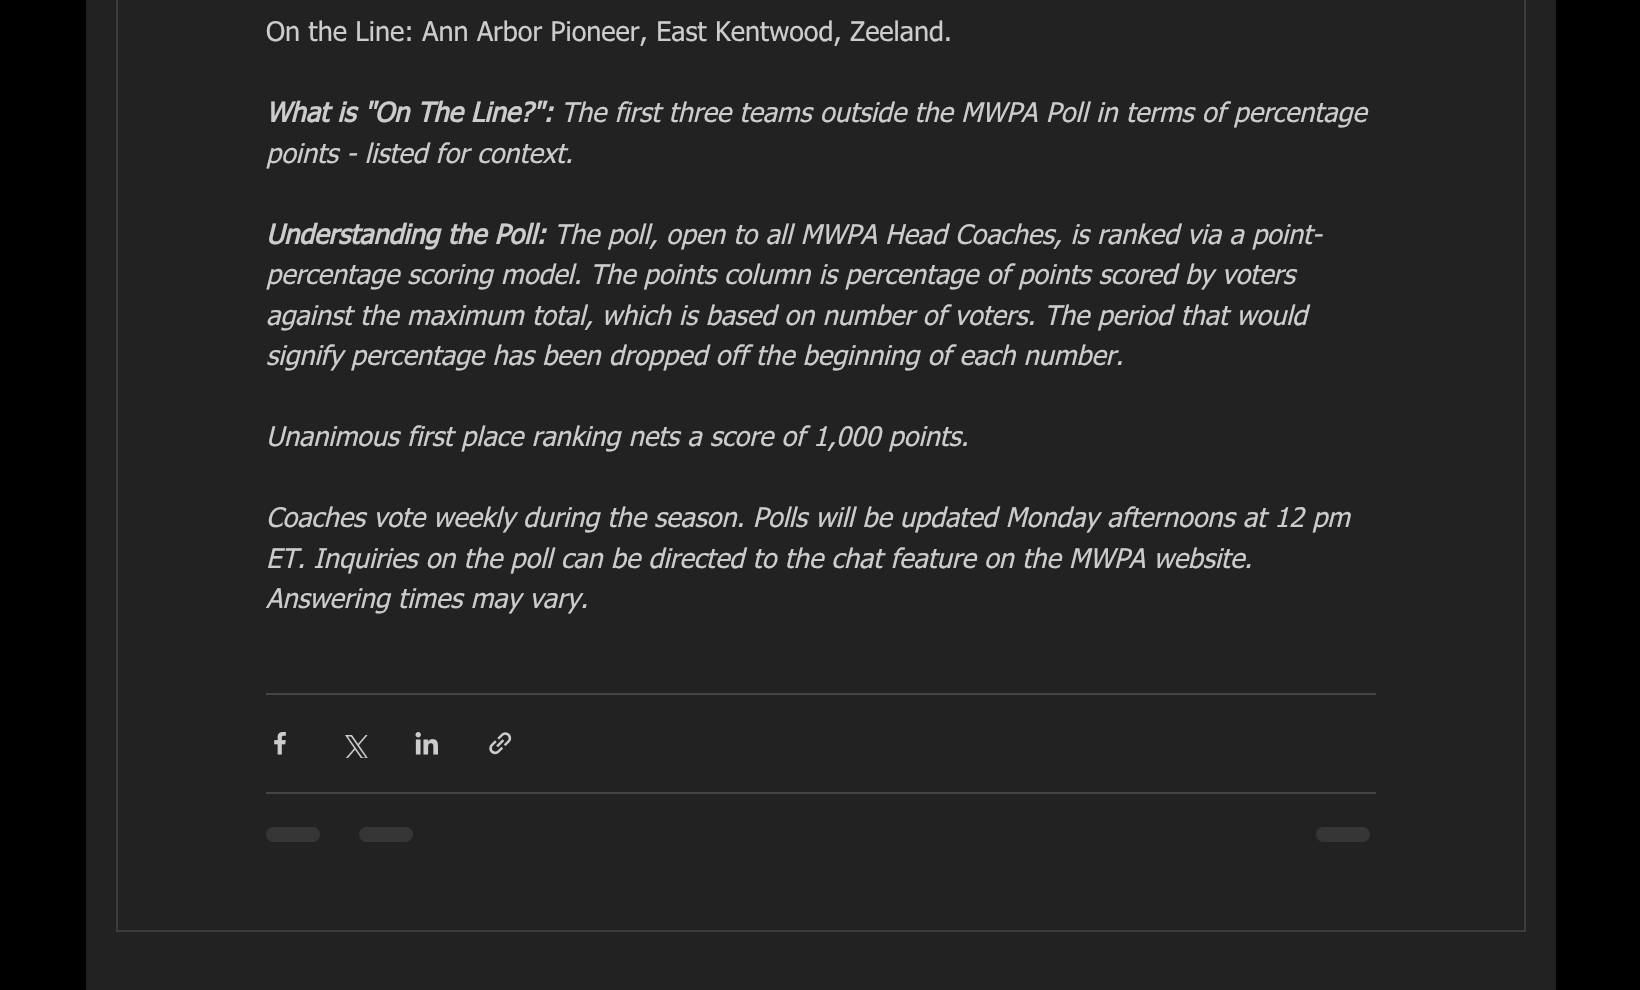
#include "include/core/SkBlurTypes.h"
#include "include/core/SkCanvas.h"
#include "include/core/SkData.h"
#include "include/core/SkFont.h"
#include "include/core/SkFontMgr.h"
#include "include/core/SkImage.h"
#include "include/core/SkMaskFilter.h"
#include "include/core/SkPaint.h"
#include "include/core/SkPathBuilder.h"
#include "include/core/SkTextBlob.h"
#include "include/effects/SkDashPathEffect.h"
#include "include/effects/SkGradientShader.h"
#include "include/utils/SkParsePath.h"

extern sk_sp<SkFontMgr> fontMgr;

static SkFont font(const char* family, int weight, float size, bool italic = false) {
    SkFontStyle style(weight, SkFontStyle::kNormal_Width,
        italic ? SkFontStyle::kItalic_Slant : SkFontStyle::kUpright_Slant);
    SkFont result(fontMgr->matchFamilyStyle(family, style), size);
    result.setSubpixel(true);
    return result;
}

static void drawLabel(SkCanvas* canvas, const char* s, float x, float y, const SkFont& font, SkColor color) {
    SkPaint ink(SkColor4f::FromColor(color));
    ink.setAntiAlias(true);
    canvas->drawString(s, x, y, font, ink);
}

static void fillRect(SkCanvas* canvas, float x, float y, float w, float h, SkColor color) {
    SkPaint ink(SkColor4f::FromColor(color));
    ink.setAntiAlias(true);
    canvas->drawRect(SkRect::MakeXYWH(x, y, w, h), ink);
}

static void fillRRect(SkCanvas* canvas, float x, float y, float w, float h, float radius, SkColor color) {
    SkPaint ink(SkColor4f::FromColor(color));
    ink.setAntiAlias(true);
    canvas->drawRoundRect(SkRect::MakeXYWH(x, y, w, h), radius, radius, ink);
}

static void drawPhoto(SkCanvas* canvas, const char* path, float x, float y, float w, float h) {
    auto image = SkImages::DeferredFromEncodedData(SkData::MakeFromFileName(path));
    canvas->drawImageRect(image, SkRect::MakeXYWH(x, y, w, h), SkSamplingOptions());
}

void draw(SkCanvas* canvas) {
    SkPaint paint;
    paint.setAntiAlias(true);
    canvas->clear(0xFF000000);
    fillRect(canvas, 86, 0, 1470, 990, 0xFF222222);
    paint.setStroke(true);
    paint.setStrokeWidth(2);
    paint.setColor(0xFF3C3C3C);
    canvas->drawRect(SkRect::MakeXYWH(117, -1, 1408, 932), paint);
    SkFont font1 = font("tahoma", 400, 27);
    drawLabel(canvas, "On the Line: Ann Arbor Pioneer, East Kentwood, Zeeland.", 266, 41, font1, 0xFFCCCCCC);
    SkFont font2 = font("tahoma", 700, 27, true);
    drawLabel(canvas, "What is \"On The Line?\":", 266, 122, font2, 0xFFCCCCCC);
    SkFont font3 = font("tahoma", 400, 27, true);
    drawLabel(canvas, "The first three teams outside the MWPA Poll in terms of percentage", 561, 122, font3, 0xFFCCCCCC);
    drawLabel(canvas, "points - listed for context.", 266, 163, font3, 0xFFCCCCCC);
    drawLabel(canvas, "Understanding the Poll:", 266, 244, font2, 0xFFCCCCCC);
    drawLabel(canvas, "The poll, open to all MWPA Head Coaches, is ranked via a point-", 554, 244, font3, 0xFFCCCCCC);
    drawLabel(canvas, "percentage scoring model. The points column is percentage of points scored by voters", 266, 284, font3, 0xFFCCCCCC);
    drawLabel(canvas, "against the maximum total, which is based on number of voters. The period that would", 266, 325, font3, 0xFFCCCCCC);
    drawLabel(canvas, "signify percentage has been dropped off the beginning of each number.", 266, 365, font3, 0xFFCCCCCC);
    drawLabel(canvas, "Unanimous first place ranking nets a score of 1,000 points.", 266, 446, font3, 0xFFCCCCCC);
    drawLabel(canvas, "Coaches vote weekly during the season. Polls will be updated Monday afternoons at 12 pm", 266, 527, font3, 0xFFCCCCCC);
    drawLabel(canvas, "ET. Inquiries on the poll can be directed to the chat feature on the MWPA website.", 266, 568, font3, 0xFFCCCCCC);
    drawLabel(canvas, "Answering times may vary.", 266, 608, font3, 0xFFCCCCCC);
    fillRect(canvas, 266, 693, 1110, 2, 0xFF444444);
    drawPhoto(canvas, "assets/img1.png", 274, 732, 12, 23);
    drawPhoto(canvas, "assets/img2.png", 345, 735, 23, 23);
    drawPhoto(canvas, "assets/img3.png", 415, 732, 23, 23);
    drawPhoto(canvas, "assets/img4.png", 489, 732, 23, 23);
    fillRect(canvas, 266, 792, 1110, 2, 0xFF444444);
    fillRRect(canvas, 266, 827, 54, 15, 7.5f, 0xFF363636);
    fillRRect(canvas, 359, 827, 54, 15, 7.5f, 0xFF363636);
    fillRRect(canvas, 1316, 827, 54, 15, 7.5f, 0xFF363636);
}
